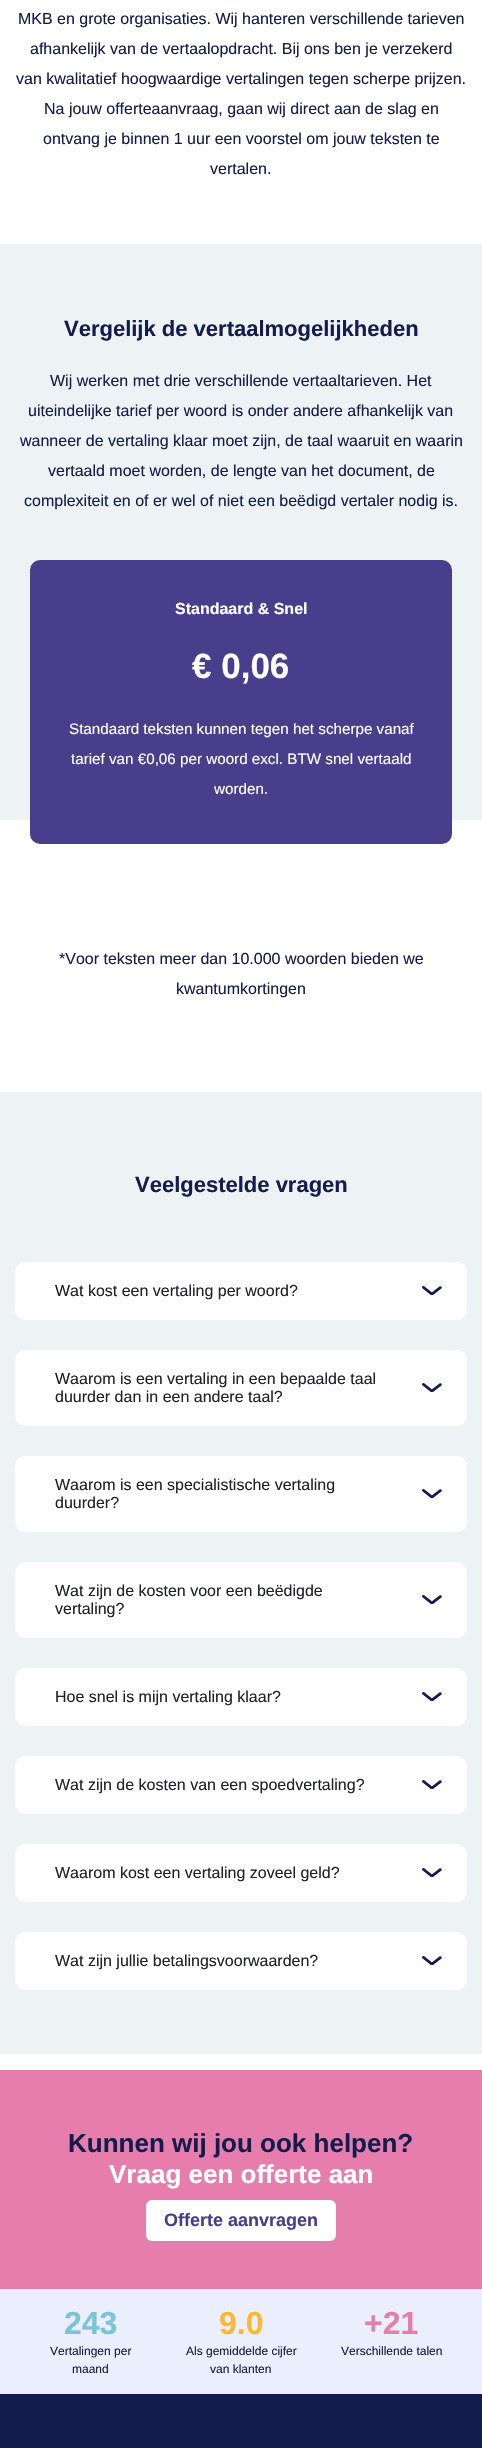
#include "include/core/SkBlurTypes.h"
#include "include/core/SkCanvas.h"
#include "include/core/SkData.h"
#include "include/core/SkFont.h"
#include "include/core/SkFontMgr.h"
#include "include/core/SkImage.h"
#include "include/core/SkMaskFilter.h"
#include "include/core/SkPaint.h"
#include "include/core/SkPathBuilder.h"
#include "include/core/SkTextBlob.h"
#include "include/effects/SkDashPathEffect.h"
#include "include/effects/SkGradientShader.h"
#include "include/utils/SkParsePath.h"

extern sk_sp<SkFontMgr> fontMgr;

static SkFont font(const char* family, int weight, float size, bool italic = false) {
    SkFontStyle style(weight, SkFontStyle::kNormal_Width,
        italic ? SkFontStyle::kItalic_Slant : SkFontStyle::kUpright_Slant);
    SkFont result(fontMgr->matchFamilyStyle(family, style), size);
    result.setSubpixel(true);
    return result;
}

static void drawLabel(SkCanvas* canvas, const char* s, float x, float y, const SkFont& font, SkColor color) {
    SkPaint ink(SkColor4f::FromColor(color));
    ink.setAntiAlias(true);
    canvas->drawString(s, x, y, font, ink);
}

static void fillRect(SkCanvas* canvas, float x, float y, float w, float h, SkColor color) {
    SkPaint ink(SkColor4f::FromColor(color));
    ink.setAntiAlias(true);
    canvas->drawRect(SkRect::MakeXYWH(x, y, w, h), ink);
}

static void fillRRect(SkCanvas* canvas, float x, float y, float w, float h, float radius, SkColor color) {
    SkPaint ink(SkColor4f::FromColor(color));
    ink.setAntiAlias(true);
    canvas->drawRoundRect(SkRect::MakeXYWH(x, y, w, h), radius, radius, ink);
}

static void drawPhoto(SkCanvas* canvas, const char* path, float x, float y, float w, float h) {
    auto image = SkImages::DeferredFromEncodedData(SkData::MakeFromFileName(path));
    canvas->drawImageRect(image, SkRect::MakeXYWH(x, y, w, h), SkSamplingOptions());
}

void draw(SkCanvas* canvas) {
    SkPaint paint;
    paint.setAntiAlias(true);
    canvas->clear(0xFFFFFFFF);
    SkFont font1 = font("Liberation Sans", 400, 16);
    drawLabel(canvas, "MKB en grote organisaties. Wij hanteren verschillende tarieven", 18, 24, font1, 0xFF141B4D);
    drawLabel(canvas, "afhankelijk van de vertaalopdracht. Bij ons ben je verzekerd", 30, 54, font1, 0xFF141B4D);
    drawLabel(canvas, "van kwalitatief hoogwaardige vertalingen tegen scherpe prijzen.", 16, 84, font1, 0xFF141B4D);
    drawLabel(canvas, "Na jouw offerteaanvraag, gaan wij direct aan de slag en", 44, 114, font1, 0xFF141B4D);
    drawLabel(canvas, "ontvang je binnen 1 uur een voorstel om jouw teksten te", 43, 144, font1, 0xFF141B4D);
    drawLabel(canvas, "vertalen.", 210, 174, font1, 0xFF141B4D);
    fillRect(canvas, 0, 244, 482, 576, 0xFFEDF3F4);
    SkFont font2 = font("Liberation Sans", 700, 22);
    drawLabel(canvas, "Vergelijk de vertaalmogelijkheden", 64, 336, font2, 0xFF141B4D);
    drawLabel(canvas, "Wij werken met drie verschillende vertaaltarieven. Het", 50, 386, font1, 0xFF141B4D);
    drawLabel(canvas, "uiteindelijke tarief per woord is onder andere afhankelijk van", 28, 416, font1, 0xFF141B4D);
    drawLabel(canvas, "wanneer de vertaling klaar moet zijn, de taal waaruit en waarin", 20, 446, font1, 0xFF141B4D);
    drawLabel(canvas, "vertaald moet worden, de lengte van het document, de", 48, 476, font1, 0xFF141B4D);
    drawLabel(canvas, "complexiteit en of er wel of niet een beëdigd vertaler nodig is.", 24, 506, font1, 0xFF141B4D);
    fillRRect(canvas, 30, 560, 422, 284, 10, 0xFF483E8C);
    SkFont font3 = font("Liberation Sans", 700, 16);
    drawLabel(canvas, "Standaard & Snel", 175, 614, font3, 0xFFFFFFFF);
    SkFont font4 = font("Liberation Sans", 700, 35);
    drawLabel(canvas, "€ 0,06", 192, 678, font4, 0xFFFFFFFF);
    SkFont font5 = font("Liberation Sans", 400, 15.2f);
    drawLabel(canvas, "Standaard teksten kunnen tegen het scherpe vanaf", 69, 734, font5, 0xFFFFFFFF);
    drawLabel(canvas, "tarief van €0,06 per woord excl. BTW snel vertaald", 71, 764, font5, 0xFFFFFFFF);
    drawLabel(canvas, "worden.", 214, 794, font5, 0xFFFFFFFF);
    drawLabel(canvas, "*Voor teksten meer dan 10.000 woorden bieden we", 59, 964, font1, 0xFF141B4D);
    drawLabel(canvas, "kwantumkortingen", 176, 994, font1, 0xFF141B4D);
    fillRect(canvas, 0, 1092, 482, 962, 0xFFEDF3F4);
    drawLabel(canvas, "Veelgestelde vragen", 135, 1192, font2, 0xFF141B4D);
    fillRRect(canvas, 15, 1262, 452, 58, 10, 0xFFFFFFFF);
    drawLabel(canvas, "Wat kost een vertaling per woord?", 55, 1296, font1, 0xFF1F2124);
    drawPhoto(canvas, "assets/img1.png", 422, 1286, 20, 9);
    fillRRect(canvas, 15, 1350, 452, 76, 10, 0xFFFFFFFF);
    drawLabel(canvas, "Waarom is een vertaling in een bepaalde taal", 55, 1384, font1, 0xFF1F2124);
    drawLabel(canvas, "duurder dan in een andere taal?", 55, 1402, font1, 0xFF1F2124);
    drawPhoto(canvas, "assets/img1.png", 422, 1383, 20, 9);
    fillRRect(canvas, 15, 1456, 452, 76, 10, 0xFFFFFFFF);
    drawLabel(canvas, "Waarom is een specialistische vertaling", 55, 1490, font1, 0xFF1F2124);
    drawLabel(canvas, "duurder?", 55, 1508, font1, 0xFF1F2124);
    drawPhoto(canvas, "assets/img1.png", 422, 1489, 20, 9);
    fillRRect(canvas, 15, 1562, 452, 76, 10, 0xFFFFFFFF);
    drawLabel(canvas, "Wat zijn de kosten voor een beëdigde", 55, 1596, font1, 0xFF1F2124);
    drawLabel(canvas, "vertaling?", 55, 1614, font1, 0xFF1F2124);
    drawPhoto(canvas, "assets/img1.png", 422, 1595, 20, 9);
    fillRRect(canvas, 15, 1668, 452, 58, 10, 0xFFFFFFFF);
    drawLabel(canvas, "Hoe snel is mijn vertaling klaar?", 55, 1702, font1, 0xFF1F2124);
    drawPhoto(canvas, "assets/img1.png", 422, 1692, 20, 9);
    fillRRect(canvas, 15, 1756, 452, 58, 10, 0xFFFFFFFF);
    drawLabel(canvas, "Wat zijn de kosten van een spoedvertaling?", 55, 1790, font1, 0xFF1F2124);
    drawPhoto(canvas, "assets/img1.png", 422, 1780, 20, 9);
    fillRRect(canvas, 15, 1844, 452, 58, 10, 0xFFFFFFFF);
    drawLabel(canvas, "Waarom kost een vertaling zoveel geld?", 55, 1878, font1, 0xFF1F2124);
    drawPhoto(canvas, "assets/img1.png", 422, 1868, 20, 9);
    fillRRect(canvas, 15, 1932, 452, 58, 10, 0xFFFFFFFF);
    drawLabel(canvas, "Wat zijn jullie betalingsvoorwaarden?", 55, 1966, font1, 0xFF1F2124);
    drawPhoto(canvas, "assets/img1.png", 422, 1956, 20, 9);
    fillRect(canvas, 0, 2070, 482, 219, 0xFFE67DAC);
    SkFont font6 = font("Liberation Sans", 700, 26);
    drawLabel(canvas, "Kunnen wij jou ook helpen?", 68, 2152, font6, 0xFF141B4D);
    drawLabel(canvas, "Vraag een offerte aan", 109, 2183, font6, 0xFFFFFFFF);
    fillRRect(canvas, 146, 2200, 190, 41, 6, 0xFFFFFFFF);
    SkFont font7 = font("Liberation Sans", 700, 18);
    drawLabel(canvas, "Offerte aanvragen", 164, 2226, font7, 0xFF483E8C);
    fillRect(canvas, 0, 2289, 482, 105, 0xFFEBEFFD);
    SkFont font8 = font("Liberation Sans", 700, 32);
    drawLabel(canvas, "243", 64, 2334, font8, 0xFF76C6D8);
    SkFont font9 = font("Liberation Sans", 400, 12);
    drawLabel(canvas, "Vertalingen per", 50, 2355, font9, 0xFF141B4D);
    drawLabel(canvas, "maand", 72, 2373, font9, 0xFF141B4D);
    drawLabel(canvas, "9.0", 219, 2334, font8, 0xFFFFB734);
    drawLabel(canvas, "Als gemiddelde cijfer", 186, 2355, font9, 0xFF141B4D);
    drawLabel(canvas, "van klanten", 210, 2373, font9, 0xFF141B4D);
    drawLabel(canvas, "+21", 364, 2334, font8, 0xFFE67DAC);
    drawLabel(canvas, "Verschillende talen", 341, 2355, font9, 0xFF141B4D);
    fillRect(canvas, 0, 2394, 482, 54, 0xFF141B4D);
}
